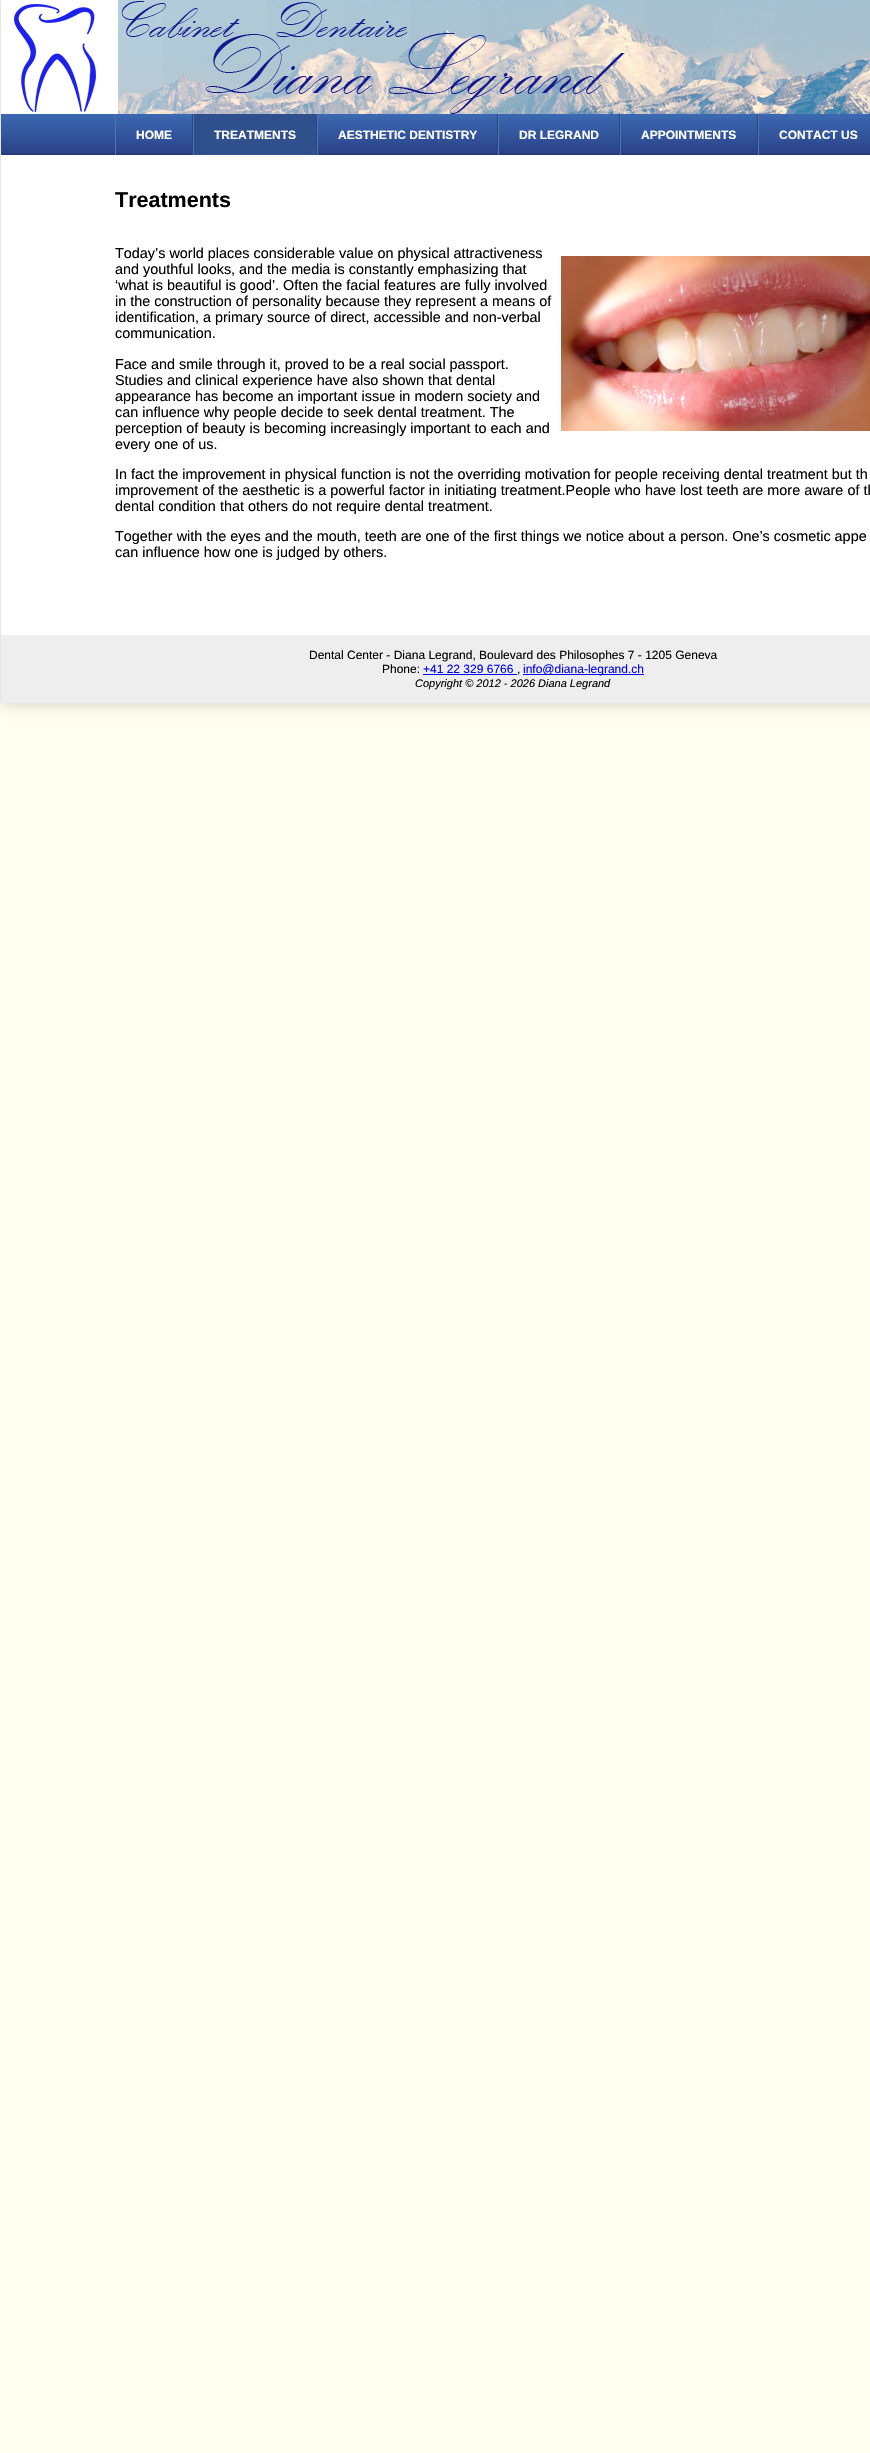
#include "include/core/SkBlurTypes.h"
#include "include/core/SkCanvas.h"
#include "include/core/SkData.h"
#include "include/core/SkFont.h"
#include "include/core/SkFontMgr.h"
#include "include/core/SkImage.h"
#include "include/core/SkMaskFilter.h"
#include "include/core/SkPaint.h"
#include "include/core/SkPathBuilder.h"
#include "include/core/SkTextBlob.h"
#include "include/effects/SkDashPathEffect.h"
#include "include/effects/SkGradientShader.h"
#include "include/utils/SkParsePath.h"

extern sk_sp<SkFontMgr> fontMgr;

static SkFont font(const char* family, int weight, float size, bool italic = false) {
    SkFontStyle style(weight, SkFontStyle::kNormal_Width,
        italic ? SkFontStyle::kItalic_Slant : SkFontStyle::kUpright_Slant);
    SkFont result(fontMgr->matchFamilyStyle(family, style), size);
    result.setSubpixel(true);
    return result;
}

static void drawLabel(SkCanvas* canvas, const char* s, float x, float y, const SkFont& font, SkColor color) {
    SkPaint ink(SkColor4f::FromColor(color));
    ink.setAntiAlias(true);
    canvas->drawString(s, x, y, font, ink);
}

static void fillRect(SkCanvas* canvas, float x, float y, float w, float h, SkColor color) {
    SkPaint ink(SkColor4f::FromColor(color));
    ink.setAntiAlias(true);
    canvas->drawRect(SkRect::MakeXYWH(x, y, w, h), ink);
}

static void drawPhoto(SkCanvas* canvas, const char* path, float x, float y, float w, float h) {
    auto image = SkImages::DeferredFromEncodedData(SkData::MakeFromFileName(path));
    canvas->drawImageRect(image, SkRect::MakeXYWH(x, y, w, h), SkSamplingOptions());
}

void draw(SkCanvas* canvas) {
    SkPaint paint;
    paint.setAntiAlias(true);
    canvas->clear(0xFFFFFFF0);
    paint.setColor(0x33000000);
    paint.setMaskFilter(SkMaskFilter::MakeBlur(kNormal_SkBlurStyle, 8));
    canvas->drawRoundRect(SkRect::MakeXYWH(0, 0, 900, 703), 6, 6, paint);
    paint.setMaskFilter(nullptr);
    fillRect(canvas, 1, 0, 869, 635, 0xFFFFFFFF);
    fillRect(canvas, 0, 0, 1, 703, 0xFFE6E6E6);
    drawPhoto(canvas, "assets/img1.png", 118, 0, 752, 114);
    drawPhoto(canvas, "assets/img2.png", 14, 4, 82, 108);
    drawPhoto(canvas, "assets/img3.png", 121, 1, 504, 113);
    drawPhoto(canvas, "assets/img4.png", 1, 114, 869, 41);
    fillRect(canvas, 192, 114, 1, 41, 0xFF29467E);
    fillRect(canvas, 115, 114, 1, 41, 0xFF5374B1);
    SkFont font1 = font("Liberation Sans", 700, 12);
    drawLabel(canvas, "HOME", 136, 139, font1, 0xFFFFFFFF);
    fillRect(canvas, 194, 114, 122, 41, 0xFF2F508C);
    fillRect(canvas, 316, 114, 1, 41, 0xFF29467E);
    fillRect(canvas, 193, 114, 1, 41, 0xFF5374B1);
    drawLabel(canvas, "TREATMENTS", 214, 139, font1, 0xFFFFFFFF);
    fillRect(canvas, 497, 114, 1, 41, 0xFF29467E);
    fillRect(canvas, 317, 114, 1, 41, 0xFF5374B1);
    drawLabel(canvas, "AESTHETIC DENTISTRY", 338, 139, font1, 0xFFFFFFFF);
    fillRect(canvas, 619, 114, 1, 41, 0xFF29467E);
    fillRect(canvas, 498, 114, 1, 41, 0xFF5374B1);
    drawLabel(canvas, "DR LEGRAND", 519, 139, font1, 0xFFFFFFFF);
    fillRect(canvas, 757, 114, 1, 41, 0xFF29467E);
    fillRect(canvas, 620, 114, 1, 41, 0xFF5374B1);
    drawLabel(canvas, "APPOINTMENTS", 641, 139, font1, 0xFFFFFFFF);
    fillRect(canvas, 758, 114, 1, 41, 0xFF5374B1);
    drawLabel(canvas, "CONTACT US", 779, 139, font1, 0xFFFFFFFF);
    SkFont font2 = font("Liberation Sans", 700, 21.5f);
    drawLabel(canvas, "Treatments", 115, 207, font2, 0xFF000000);
    SkFont font3 = font("Liberation Sans", 400, 14.4f);
    drawLabel(canvas, "Today’s world places considerable value on physical attractiveness", 115, 258, font3, 0xFF000000);
    drawLabel(canvas, "and youthful looks, and the media is constantly emphasizing that", 115, 274, font3, 0xFF000000);
    drawLabel(canvas, "‘what is beautiful is good’. Often the facial features are fully involved", 115, 290, font3, 0xFF000000);
    drawLabel(canvas, "in the construction of personality because they represent a means of", 115, 306, font3, 0xFF000000);
    drawLabel(canvas, "identification, a primary source of direct, accessible and non-verbal", 115, 322, font3, 0xFF000000);
    drawLabel(canvas, "communication.", 115, 338, font3, 0xFF000000);
    drawPhoto(canvas, "assets/img5.png", 561, 256, 309, 175);
    drawLabel(canvas, "Face and smile through it, proved to be a real social passport.", 115, 369, font3, 0xFF000000);
    drawLabel(canvas, "Studies and clinical experience have also shown that dental", 115, 385, font3, 0xFF000000);
    drawLabel(canvas, "appearance has become an important issue in modern society and", 115, 401, font3, 0xFF000000);
    drawLabel(canvas, "can influence why people decide to seek dental treatment. The", 115, 417, font3, 0xFF000000);
    drawLabel(canvas, "perception of beauty is becoming increasingly important to each and", 115, 433, font3, 0xFF000000);
    drawLabel(canvas, "every one of us.", 115, 449, font3, 0xFF000000);
    drawLabel(canvas, "In fact the improvement in physical function is not the overriding motivation", 115, 479, font3, 0xFF000000);
    drawLabel(canvas, "for people receiving dental treatment but th", 594, 479, font3, 0xFF000000);
    drawLabel(canvas, "improvement of the aesthetic is a powerful factor in initiating treatment.People who have lost teeth are more aware of th", 115, 495, font3, 0xFF000000);
    drawLabel(canvas, "dental condition that others do not require dental treatment.", 115, 511, font3, 0xFF000000);
    drawLabel(canvas, "Together with the eyes and the mouth, teeth are one of the first things we notice about a person. One’s cosmetic appe", 115, 541, font3, 0xFF000000);
    drawLabel(canvas, "can influence how one is judged by others.", 115, 557, font3, 0xFF000000);
    fillRect(canvas, 1, 635, 869, 68, 0xFFEEEEEE);
    SkFont font4 = font("Liberation Sans", 400, 12);
    drawLabel(canvas, "Dental Center - Diana Legrand, Boulevard des Philosophes 7 - 1205 Geneva", 309, 659, font4, 0xFF000000);
    drawLabel(canvas, "Phone:", 382, 673, font4, 0xFF000000);
    drawLabel(canvas, "+41 22 329 6766", 423, 673, font4, 0xFF0000EE);
    fillRect(canvas, 423, 674, 94, 1, 0xFF0000EE);
    drawLabel(canvas, ",", 517, 673, font4, 0xFF000000);
    fillRect(canvas, 523, 674, 121, 1, 0xFF0000EE);
    drawLabel(canvas, "info@diana-legrand.ch", 523, 673, font4, 0xFF0000EE);
    SkFont font5 = font("Liberation Sans", 400, 11, true);
    drawLabel(canvas, "Copyright © 2012 - 2026 Diana Legrand", 415, 687, font5, 0xFF000000);
}
